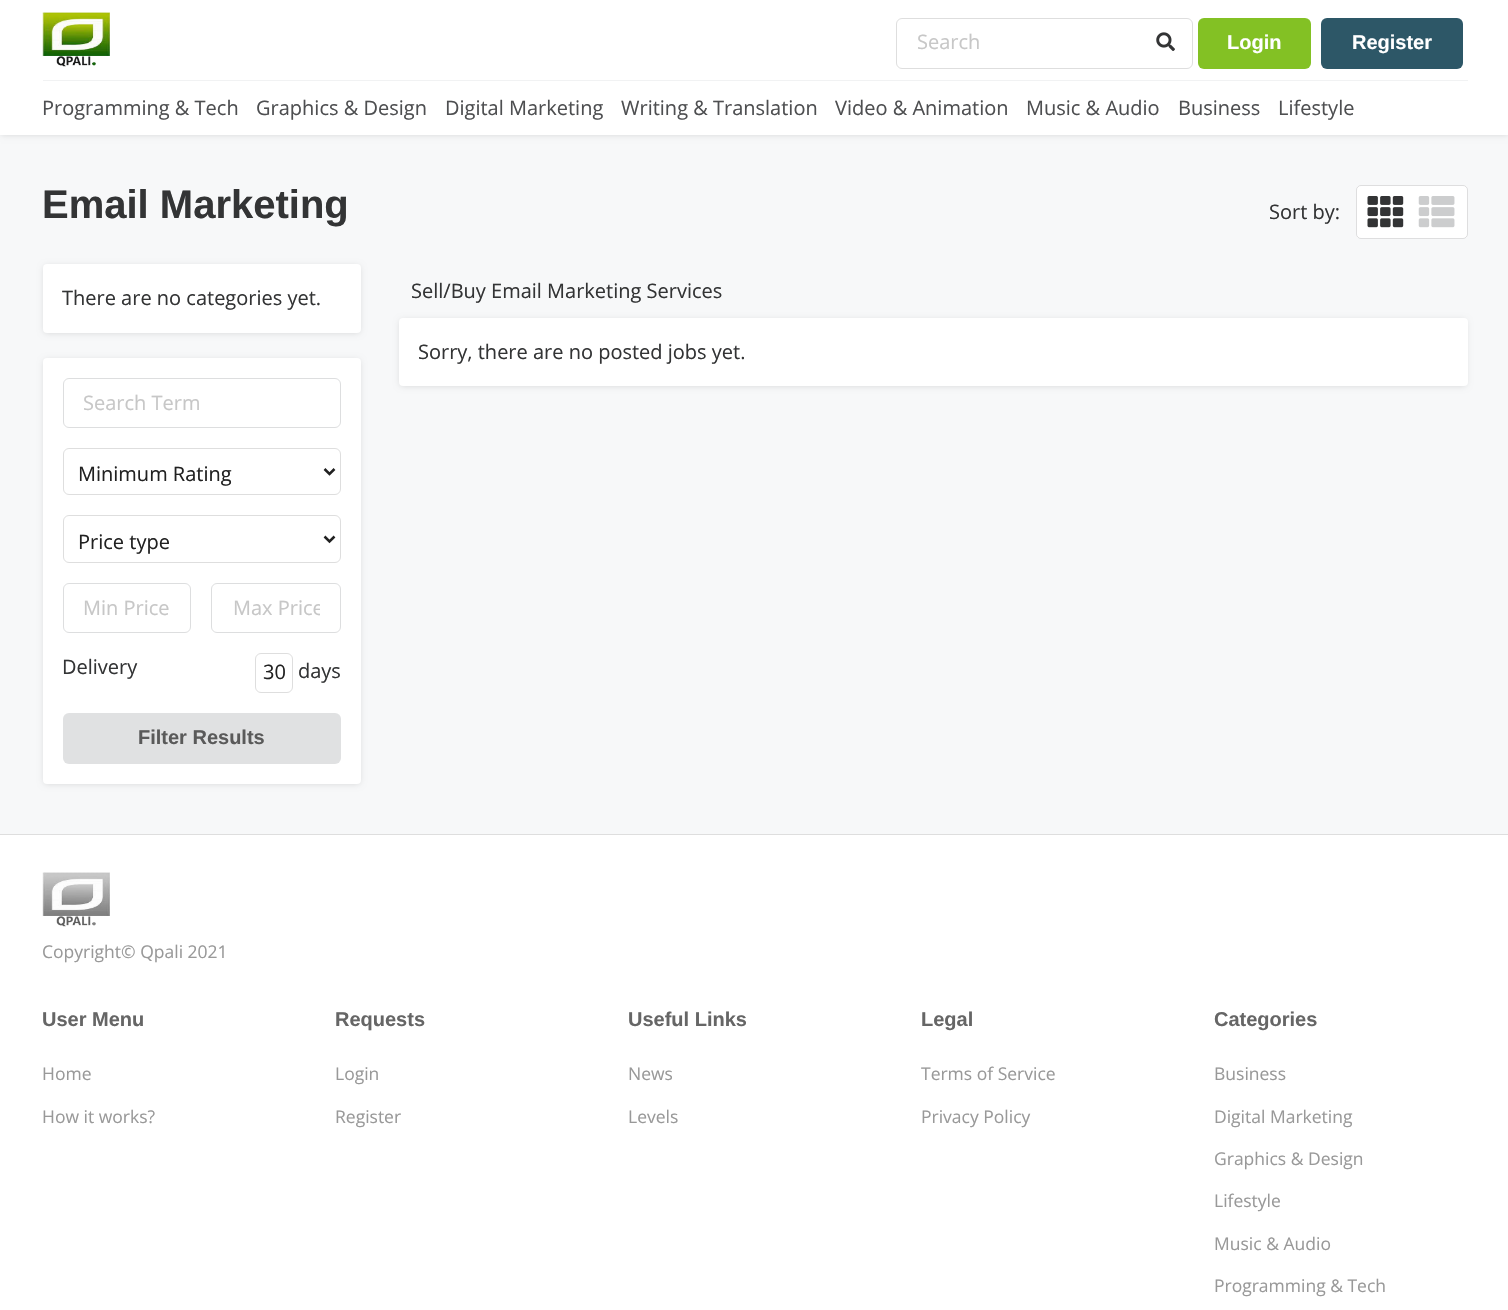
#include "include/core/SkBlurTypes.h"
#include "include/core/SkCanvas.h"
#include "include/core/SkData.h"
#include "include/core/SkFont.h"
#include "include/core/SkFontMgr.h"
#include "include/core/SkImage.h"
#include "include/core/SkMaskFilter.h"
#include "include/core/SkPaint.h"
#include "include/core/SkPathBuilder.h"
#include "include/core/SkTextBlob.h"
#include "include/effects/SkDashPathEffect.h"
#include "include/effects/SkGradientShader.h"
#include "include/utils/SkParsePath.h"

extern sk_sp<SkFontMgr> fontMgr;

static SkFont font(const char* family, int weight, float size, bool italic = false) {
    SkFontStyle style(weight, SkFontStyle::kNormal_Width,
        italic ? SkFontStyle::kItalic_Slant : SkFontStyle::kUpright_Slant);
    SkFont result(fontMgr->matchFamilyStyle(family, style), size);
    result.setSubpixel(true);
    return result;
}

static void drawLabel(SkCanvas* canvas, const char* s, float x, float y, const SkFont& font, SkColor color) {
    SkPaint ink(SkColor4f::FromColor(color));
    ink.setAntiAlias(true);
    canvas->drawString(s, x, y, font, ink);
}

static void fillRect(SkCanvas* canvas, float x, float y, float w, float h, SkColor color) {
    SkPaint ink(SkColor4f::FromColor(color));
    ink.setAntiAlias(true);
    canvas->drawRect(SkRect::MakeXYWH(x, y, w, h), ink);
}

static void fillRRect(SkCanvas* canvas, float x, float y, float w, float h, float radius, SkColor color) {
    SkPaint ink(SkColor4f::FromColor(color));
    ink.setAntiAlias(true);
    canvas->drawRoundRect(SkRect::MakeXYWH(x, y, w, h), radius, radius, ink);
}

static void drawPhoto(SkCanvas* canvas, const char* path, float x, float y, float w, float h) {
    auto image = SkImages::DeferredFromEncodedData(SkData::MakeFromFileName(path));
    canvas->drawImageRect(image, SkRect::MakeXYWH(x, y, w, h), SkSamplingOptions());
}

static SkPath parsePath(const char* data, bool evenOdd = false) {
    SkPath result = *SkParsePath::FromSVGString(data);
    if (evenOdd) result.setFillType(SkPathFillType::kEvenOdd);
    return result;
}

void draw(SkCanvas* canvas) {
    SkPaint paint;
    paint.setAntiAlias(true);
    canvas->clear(0xFFF7F8F9);
    paint.setColor(0x21000000);
    paint.setMaskFilter(SkMaskFilter::MakeBlur(kNormal_SkBlurStyle, 3));
    canvas->drawRect(SkRect::MakeXYWH(1, 3, 1507, 132), paint);
    paint.setMaskFilter(nullptr);
    fillRect(canvas, 0, 0, 1508, 135, 0xFFFFFFFF);
    drawPhoto(canvas, "assets/img1.png", 42, 12, 68, 55);
    paint.setStroke(true);
    paint.setStrokeWidth(1);
    paint.setColor(0xFFDEDEDE);
    canvas->drawRoundRect(SkRect::MakeXYWH(896.5f, 18.5f, 296, 50), 5.5f, 5.5f, paint);
    SkFont font1 = font("Open Sans", 400, 20);
    drawLabel(canvas, "Search", 917, 49, font1, 0xFFC7C7C7);
    drawPhoto(canvas, "assets/img2.png", 1156, 32, 19, 19);
    fillRRect(canvas, 1198, 18, 113, 51, 6, 0xFF83C124);
    SkFont font2 = font("Liberation Sans", 700, 20);
    drawLabel(canvas, "Login", 1227, 49, font2, 0xFFFFFFFF);
    fillRRect(canvas, 1321, 18, 142, 51, 6, 0xFF2D5767);
    drawLabel(canvas, "Register", 1352, 49, font2, 0xFFFFFFFF);
    fillRect(canvas, 43, 80, 1425, 1, 0xFFF1F2F3);
    drawLabel(canvas, "Programming & Tech", 42, 115, font1, 0xFF4E4F51);
    drawLabel(canvas, "Graphics & Design", 256, 115, font1, 0xFF4E4F51);
    drawLabel(canvas, "Digital Marketing", 445, 115, font1, 0xFF4E4F51);
    drawLabel(canvas, "Writing & Translation", 621, 115, font1, 0xFF4E4F51);
    drawLabel(canvas, "Video & Animation", 835, 115, font1, 0xFF4E4F51);
    drawLabel(canvas, "Music & Audio", 1026, 115, font1, 0xFF4E4F51);
    drawLabel(canvas, "Business", 1178, 115, font1, 0xFF4E4F51);
    drawLabel(canvas, "Lifestyle", 1278, 115, font1, 0xFF4E4F51);
    SkFont font3 = font("Liberation Sans", 700, 40);
    drawLabel(canvas, "Email Marketing", 42, 218, font3, 0xFF333435);
    drawLabel(canvas, "Sort by:", 1269, 219, font1, 0xFF333435);
    fillRRect(canvas, 1356, 185, 112, 54, 5, 0xFFFFFFFF);
    paint.setColor(0x26222426);
    canvas->drawRoundRect(SkRect::MakeXYWH(1356.5f, 185.5f, 111, 53), 4.5f, 4.5f, paint);
    drawPhoto(canvas, "assets/img3.png", 1367, 196, 37, 32);
    drawPhoto(canvas, "assets/img4.png", 1418, 196, 37, 32);
    paint.setStroke(false);
    paint.setColor(0x21000000);
    paint.setMaskFilter(SkMaskFilter::MakeBlur(kNormal_SkBlurStyle, 3));
    canvas->drawRoundRect(SkRect::MakeXYWH(44, 266, 316, 67), 3, 3, paint);
    paint.setMaskFilter(nullptr);
    fillRRect(canvas, 43, 264, 318, 69, 4, 0xFFFFFFFF);
    drawLabel(canvas, "There are no categories yet.", 62, 305, font1, 0xFF333435);
    paint.setMaskFilter(SkMaskFilter::MakeBlur(kNormal_SkBlurStyle, 3));
    canvas->drawRoundRect(SkRect::MakeXYWH(44, 360, 316, 424), 3, 3, paint);
    paint.setMaskFilter(nullptr);
    fillRRect(canvas, 43, 358, 318, 426, 4, 0xFFFFFFFF);
    paint.setStroke(true);
    paint.setColor(0xFFDDDEDF);
    canvas->drawRoundRect(SkRect::MakeXYWH(63.5f, 378.5f, 277, 49), 5.5f, 5.5f, paint);
    drawLabel(canvas, "Search Term", 83, 410, font1, 0xFFC7C7C7);
    paint.setColor(0xFFDEDEDE);
    canvas->drawRoundRect(SkRect::MakeXYWH(63.5f, 448.5f, 277, 46), 5.5f, 5.5f, paint);
    paint.setStrokeWidth(2.5f);
    paint.setColor(0xFF212121);
    canvas->drawPath(parsePath("M324.5 469L329.5 474L334.5 469"), paint);
    drawLabel(canvas, "Minimum Rating", 78, 481, font1, 0xFF212121);
    paint.setStrokeWidth(1);
    paint.setColor(0xFFDEDEDE);
    canvas->drawRoundRect(SkRect::MakeXYWH(63.5f, 515.5f, 277, 47), 5.5f, 5.5f, paint);
    paint.setStrokeWidth(2.5f);
    paint.setColor(0xFF212121);
    canvas->drawPath(parsePath("M324.5 536.5L329.5 541.5L334.5 536.5"), paint);
    drawLabel(canvas, "Price type", 78, 549, font1, 0xFF212121);
    paint.setStrokeWidth(1);
    paint.setColor(0xFFDDDEDF);
    canvas->drawRoundRect(SkRect::MakeXYWH(63.5f, 583.5f, 127, 49), 5.5f, 5.5f, paint);
    drawLabel(canvas, "Min Price", 83, 615, font1, 0xFFC7C7C7);
    canvas->drawRoundRect(SkRect::MakeXYWH(211.5f, 583.5f, 129, 49), 5.5f, 5.5f, paint);
    canvas->save();
    canvas->clipRect(SkRect::MakeXYWH(233, 594, 87, 27));
    drawLabel(canvas, "Max Price", 233, 615, font1, 0xFFC7C7C7);
    canvas->restore();
    drawLabel(canvas, "Delivery", 62, 674, font1, 0xFF333435);
    paint.setColor(0xFFDEDEDE);
    canvas->drawRoundRect(SkRect::MakeXYWH(255.5f, 653.5f, 37, 39), 5.5f, 5.5f, paint);
    drawLabel(canvas, "30", 263, 679, font1, 0xFF212121);
    drawLabel(canvas, "days", 298, 678, font1, 0xFF333435);
    fillRRect(canvas, 63, 713, 278, 51, 6, 0xFFE0E1E2);
    drawLabel(canvas, "Filter Results", 138, 744, font2, 0xFF5A5A5A);
    drawLabel(canvas, "Sell/Buy Email Marketing Services", 411, 298, font1, 0xFF333435);
    paint.setStroke(false);
    paint.setColor(0x21000000);
    paint.setMaskFilter(SkMaskFilter::MakeBlur(kNormal_SkBlurStyle, 3));
    canvas->drawRoundRect(SkRect::MakeXYWH(400, 320, 1066, 66), 3, 3, paint);
    paint.setMaskFilter(nullptr);
    fillRRect(canvas, 399, 318, 1069, 68, 4, 0xFFFFFFFF);
    drawLabel(canvas, "Sorry, there are no posted jobs yet.", 418, 359, font1, 0xFF333435);
    fillRect(canvas, 0, 835, 1508, 475, 0xFFFFFFFF);
    fillRect(canvas, 0, 834, 1508, 1, 0xFFDEDEDE);
    drawPhoto(canvas, "assets/img5.png", 42, 872, 68, 55);
    SkFont font4 = font("Open Sans", 400, 17.5f);
    drawLabel(canvas, "Copyright© Qpali 2021", 42, 958, font4, 0xFF999999);
    drawLabel(canvas, "User Menu", 42, 1026, font2, 0xFF666666);
    drawLabel(canvas, "Home", 42, 1080, font4, 0xFF999999);
    drawLabel(canvas, "How it works?", 42, 1123, font4, 0xFF999999);
    drawLabel(canvas, "Requests", 335, 1026, font2, 0xFF666666);
    drawLabel(canvas, "Login", 335, 1080, font4, 0xFF999999);
    drawLabel(canvas, "Register", 335, 1123, font4, 0xFF999999);
    drawLabel(canvas, "Useful Links", 628, 1026, font2, 0xFF666666);
    drawLabel(canvas, "News", 628, 1080, font4, 0xFF999999);
    drawLabel(canvas, "Levels", 628, 1123, font4, 0xFF999999);
    drawLabel(canvas, "Legal", 921, 1026, font2, 0xFF666666);
    drawLabel(canvas, "Terms of Service", 921, 1080, font4, 0xFF999999);
    drawLabel(canvas, "Privacy Policy", 921, 1123, font4, 0xFF999999);
    drawLabel(canvas, "Categories", 1214, 1026, font2, 0xFF666666);
    drawLabel(canvas, "Business", 1214, 1080, font4, 0xFF999999);
    drawLabel(canvas, "Digital Marketing", 1214, 1123, font4, 0xFF999999);
    drawLabel(canvas, "Graphics & Design", 1214, 1165, font4, 0xFF999999);
    drawLabel(canvas, "Lifestyle", 1214, 1207, font4, 0xFF999999);
    drawLabel(canvas, "Music & Audio", 1214, 1250, font4, 0xFF999999);
    drawLabel(canvas, "Programming & Tech", 1214, 1292, font4, 0xFF999999);
}
